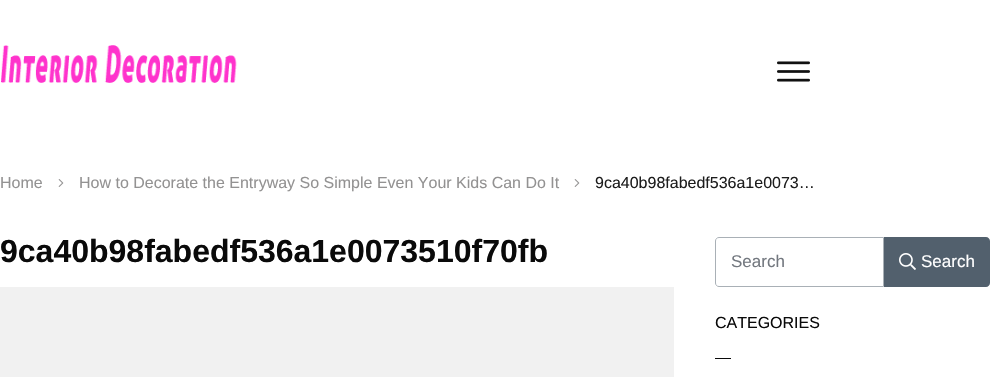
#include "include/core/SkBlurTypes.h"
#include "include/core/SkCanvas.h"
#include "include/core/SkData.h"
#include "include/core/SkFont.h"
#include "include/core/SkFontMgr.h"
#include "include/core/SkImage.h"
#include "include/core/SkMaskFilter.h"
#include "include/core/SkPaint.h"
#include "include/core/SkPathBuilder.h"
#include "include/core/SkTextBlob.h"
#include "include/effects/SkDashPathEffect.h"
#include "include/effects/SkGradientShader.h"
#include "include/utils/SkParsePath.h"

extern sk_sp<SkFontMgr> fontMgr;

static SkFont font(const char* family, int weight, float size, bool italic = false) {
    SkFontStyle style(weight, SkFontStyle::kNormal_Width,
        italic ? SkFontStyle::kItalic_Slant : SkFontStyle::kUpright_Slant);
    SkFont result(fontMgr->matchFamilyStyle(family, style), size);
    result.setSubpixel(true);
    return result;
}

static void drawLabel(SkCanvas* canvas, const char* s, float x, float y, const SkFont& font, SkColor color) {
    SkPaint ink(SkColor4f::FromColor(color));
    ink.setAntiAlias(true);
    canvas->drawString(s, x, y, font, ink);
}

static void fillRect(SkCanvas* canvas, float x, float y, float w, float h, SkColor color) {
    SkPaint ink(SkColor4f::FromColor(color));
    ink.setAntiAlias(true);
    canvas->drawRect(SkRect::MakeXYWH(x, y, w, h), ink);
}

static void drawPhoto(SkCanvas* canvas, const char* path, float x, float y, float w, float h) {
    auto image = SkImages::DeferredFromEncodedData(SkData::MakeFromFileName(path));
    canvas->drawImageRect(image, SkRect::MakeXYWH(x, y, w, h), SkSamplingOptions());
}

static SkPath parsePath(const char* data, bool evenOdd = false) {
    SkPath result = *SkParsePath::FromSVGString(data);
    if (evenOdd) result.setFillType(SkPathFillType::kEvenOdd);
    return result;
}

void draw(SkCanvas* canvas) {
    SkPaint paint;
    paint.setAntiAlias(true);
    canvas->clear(0xFFFFFFFF);
    drawPhoto(canvas, "assets/img1.png", 1, 45, 236, 38);
    drawPhoto(canvas, "assets/img2.png", 777, 61, 33, 21);
    SkFont font1 = font("Liberation Sans", 400, 16);
    drawLabel(canvas, "Home", 0, 188, font1, 0xFF939292);
    drawPhoto(canvas, "assets/img3.png", 58, 179, 6, 8);
    drawLabel(canvas, "How to Decorate the Entryway So Simple Even Your Kids Can Do It", 79, 188, font1, 0xFF939292);
    drawPhoto(canvas, "assets/img3.png", 574, 179, 6, 8);
    drawLabel(canvas, "9ca40b98fabedf536a1e0073…", 595, 188, font1, 0xFF1D1D1D);
    SkFont font2 = font("Liberation Sans", 700, 32);
    drawLabel(canvas, "9ca40b98fabedf536a1e0073510f70fb", 0, 262, font2, 0xFF0A0A0A);
    fillRect(canvas, 0, 287, 674, 90, 0xFFF1F1F1);
    paint.setStroke(true);
    paint.setStrokeWidth(1);
    paint.setColor(0xFFA9B0B6);
    canvas->drawPath(parsePath("M719 237.5H883.5V286.5H719C717 286.5 715.5 285 715.5 283V241C715.5 239 717 237.5 719 237.5Z"), paint);
    SkFont font3 = font("Liberation Sans", 400, 17);
    drawLabel(canvas, "Search", 731, 267, font3, 0xFF73787F);
    paint.setStroke(false);
    paint.setColor(0xFF52606D);
    canvas->drawPath(parsePath("M884 237H986C988 237 990 239 990 241V283C990 285 988 287 986 287H884Z"), paint);
    drawPhoto(canvas, "assets/img4.png", 899, 253, 17, 17);
    drawLabel(canvas, "Search", 921, 267, font3, 0xFFFFFFFF);
    drawLabel(canvas, "CATEGORIES", 715, 328, font1, 0xFF0A0A0A);
    fillRect(canvas, 715, 358, 16, 1, 0xFF0A0A0A);
}
